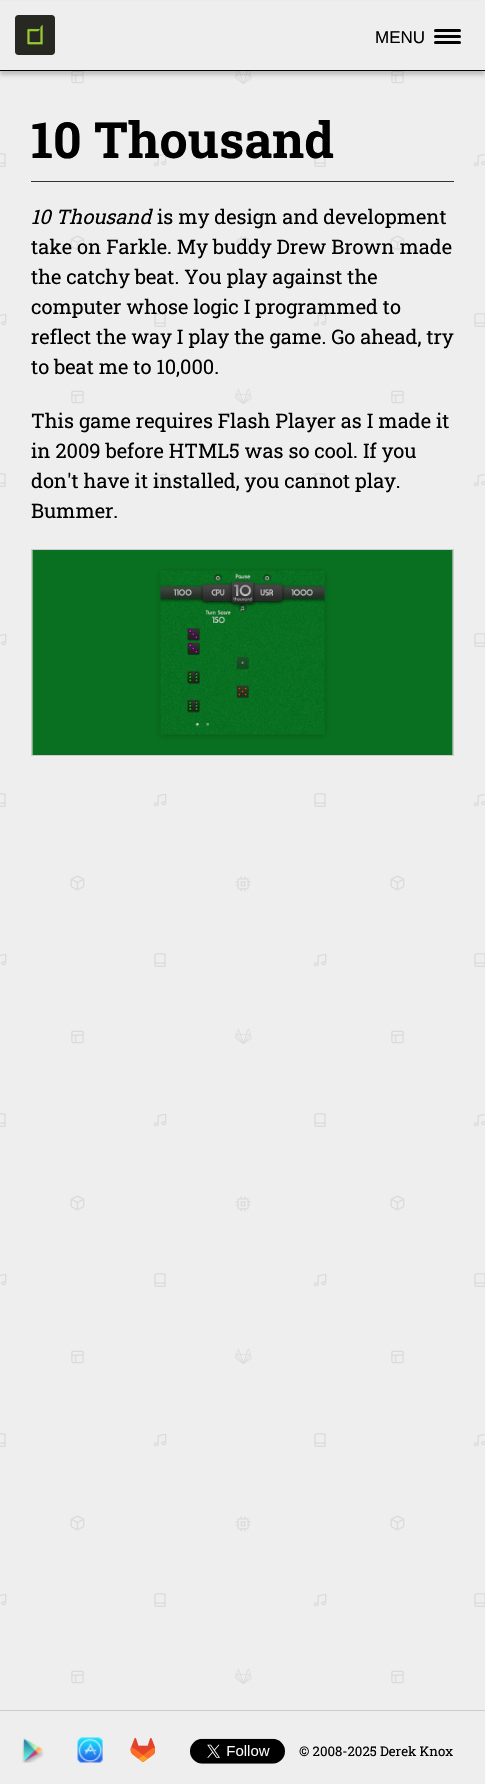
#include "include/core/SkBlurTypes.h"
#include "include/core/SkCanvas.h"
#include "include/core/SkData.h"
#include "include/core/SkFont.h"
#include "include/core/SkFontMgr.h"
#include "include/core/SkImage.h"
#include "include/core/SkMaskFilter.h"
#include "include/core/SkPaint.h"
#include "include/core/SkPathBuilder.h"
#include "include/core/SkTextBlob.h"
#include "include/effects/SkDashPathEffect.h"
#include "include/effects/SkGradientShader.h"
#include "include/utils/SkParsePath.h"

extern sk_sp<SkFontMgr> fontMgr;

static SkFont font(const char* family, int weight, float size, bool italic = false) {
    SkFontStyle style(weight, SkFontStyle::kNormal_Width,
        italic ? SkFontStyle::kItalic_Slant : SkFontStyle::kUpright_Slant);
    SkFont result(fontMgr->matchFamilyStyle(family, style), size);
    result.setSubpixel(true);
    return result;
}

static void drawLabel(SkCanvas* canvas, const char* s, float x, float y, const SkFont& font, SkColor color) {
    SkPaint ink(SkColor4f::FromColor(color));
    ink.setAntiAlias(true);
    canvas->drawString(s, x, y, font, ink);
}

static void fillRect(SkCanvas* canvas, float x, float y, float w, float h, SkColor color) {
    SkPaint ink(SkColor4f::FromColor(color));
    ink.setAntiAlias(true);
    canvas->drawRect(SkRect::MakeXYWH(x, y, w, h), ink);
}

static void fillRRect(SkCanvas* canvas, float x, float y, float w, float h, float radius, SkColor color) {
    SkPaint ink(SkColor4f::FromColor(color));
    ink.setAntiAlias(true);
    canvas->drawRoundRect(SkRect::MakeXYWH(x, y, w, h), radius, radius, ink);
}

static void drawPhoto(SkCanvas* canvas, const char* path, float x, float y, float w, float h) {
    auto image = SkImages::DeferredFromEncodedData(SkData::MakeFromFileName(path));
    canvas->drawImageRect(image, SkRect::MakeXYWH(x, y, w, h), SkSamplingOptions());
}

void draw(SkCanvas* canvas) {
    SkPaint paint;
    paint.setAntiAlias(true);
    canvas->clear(0xFFEEEEEE);
    drawPhoto(canvas, "assets/img1.png", 0, 71, 485, 1613);
    paint.setColor(0x33000000);
    paint.setMaskFilter(SkMaskFilter::MakeBlur(kNormal_SkBlurStyle, 2));
    canvas->drawRect(SkRect::MakeXYWH(0, 4, 485, 71), paint);
    paint.setMaskFilter(nullptr);
    fillRect(canvas, 0, 1, 485, 69, 0xFFEEEEEE);
    fillRect(canvas, 0, 70, 485, 1, 0xFF000000);
    drawPhoto(canvas, "assets/img2.png", 15, 15, 40, 40);
    SkFont font1 = font("Liberation Sans", 400, 17);
    drawLabel(canvas, "MENU", 375, 43, font1, 0xFF000000);
    fillRRect(canvas, 434, 29, 27, 3, 1.5f, 0xFF000000);
    fillRRect(canvas, 434, 35, 27, 3, 1.5f, 0xFF000000);
    fillRRect(canvas, 434, 41, 27, 3, 1.5f, 0xFF000000);
    fillRect(canvas, 31, 181, 423, 1, 0xFF333333);
    SkFont font2 = font("Roboto Slab", 700, 50);
    drawLabel(canvas, "10 Thousand", 31, 158, font2, 0xFF000000);
    SkFont font3 = font("Roboto Slab", 400, 20, true);
    drawLabel(canvas, "10 Thousand", 31, 224, font3, 0xFF000000);
    SkFont font4 = font("Roboto Slab", 400, 20);
    drawLabel(canvas, "is my design and development", 157, 224, font4, 0xFF000000);
    drawLabel(canvas, "take on Farkle. My buddy Drew Brown made", 31, 254, font4, 0xFF000000);
    drawLabel(canvas, "the catchy beat. You play against the", 31, 284, font4, 0xFF000000);
    drawLabel(canvas, "computer whose logic I programmed to", 31, 314, font4, 0xFF000000);
    drawLabel(canvas, "reflect the way I play the game. Go ahead, try", 31, 344, font4, 0xFF000000);
    drawLabel(canvas, "to beat me to 10,000.", 31, 374, font4, 0xFF000000);
    drawLabel(canvas, "This game requires Flash Player as I made it", 31, 428, font4, 0xFF000000);
    drawLabel(canvas, "in 2009 before HTML5 was so cool. If you", 31, 458, font4, 0xFF000000);
    drawLabel(canvas, "don't have it installed, you cannot play.", 31, 488, font4, 0xFF000000);
    drawLabel(canvas, "Bummer.", 31, 518, font4, 0xFF000000);
    paint.setStroke(true);
    paint.setStrokeWidth(1);
    paint.setColor(0xFFCCCCCC);
    canvas->drawRect(SkRect::MakeXYWH(31.5f, 549.5f, 422, 206), paint);
    drawPhoto(canvas, "assets/img3.png", 32, 550, 421, 205);
    fillRect(canvas, 0, 1710, 485, 1, 0xFFCCCCCC);
    drawPhoto(canvas, "assets/img4.png", 22, 1738, 22, 25);
    drawPhoto(canvas, "assets/img5.png", 77, 1737, 26, 26);
    drawPhoto(canvas, "assets/img6.png", 130, 1738, 25, 24);
    drawPhoto(canvas, "assets/img7.png", 190, 1738, 95, 26);
    SkFont font5 = font("Roboto Slab", 400, 13.25f);
    drawLabel(canvas, "© 2008-2025 Derek Knox", 299, 1756, font5, 0xFF000000);
}
